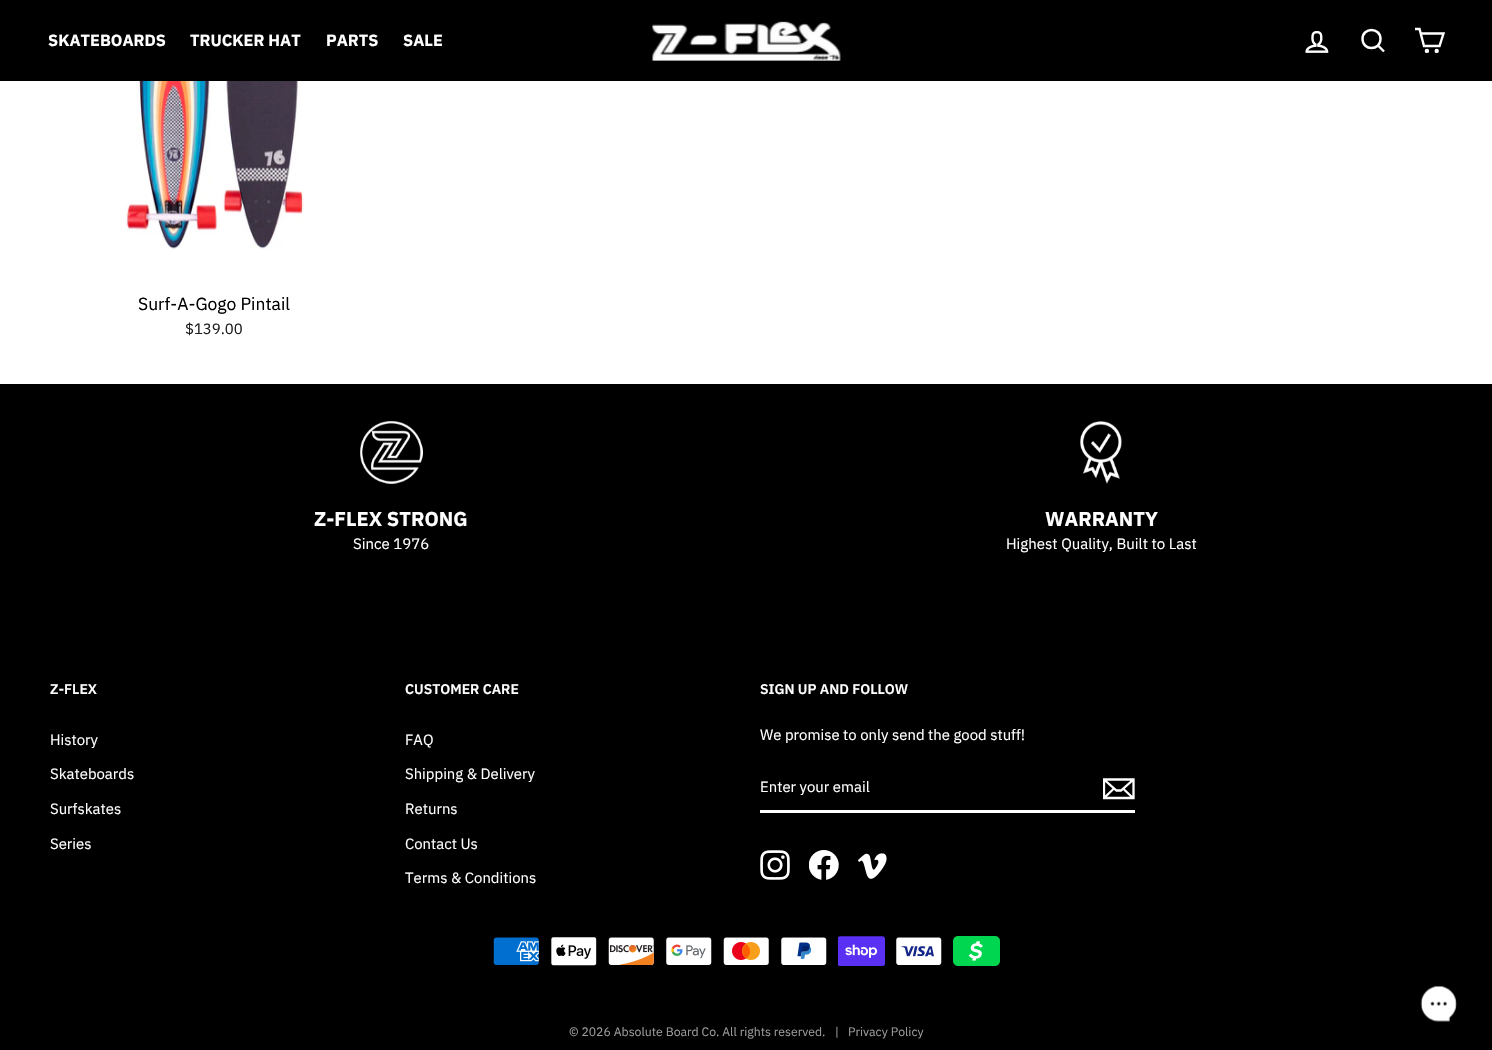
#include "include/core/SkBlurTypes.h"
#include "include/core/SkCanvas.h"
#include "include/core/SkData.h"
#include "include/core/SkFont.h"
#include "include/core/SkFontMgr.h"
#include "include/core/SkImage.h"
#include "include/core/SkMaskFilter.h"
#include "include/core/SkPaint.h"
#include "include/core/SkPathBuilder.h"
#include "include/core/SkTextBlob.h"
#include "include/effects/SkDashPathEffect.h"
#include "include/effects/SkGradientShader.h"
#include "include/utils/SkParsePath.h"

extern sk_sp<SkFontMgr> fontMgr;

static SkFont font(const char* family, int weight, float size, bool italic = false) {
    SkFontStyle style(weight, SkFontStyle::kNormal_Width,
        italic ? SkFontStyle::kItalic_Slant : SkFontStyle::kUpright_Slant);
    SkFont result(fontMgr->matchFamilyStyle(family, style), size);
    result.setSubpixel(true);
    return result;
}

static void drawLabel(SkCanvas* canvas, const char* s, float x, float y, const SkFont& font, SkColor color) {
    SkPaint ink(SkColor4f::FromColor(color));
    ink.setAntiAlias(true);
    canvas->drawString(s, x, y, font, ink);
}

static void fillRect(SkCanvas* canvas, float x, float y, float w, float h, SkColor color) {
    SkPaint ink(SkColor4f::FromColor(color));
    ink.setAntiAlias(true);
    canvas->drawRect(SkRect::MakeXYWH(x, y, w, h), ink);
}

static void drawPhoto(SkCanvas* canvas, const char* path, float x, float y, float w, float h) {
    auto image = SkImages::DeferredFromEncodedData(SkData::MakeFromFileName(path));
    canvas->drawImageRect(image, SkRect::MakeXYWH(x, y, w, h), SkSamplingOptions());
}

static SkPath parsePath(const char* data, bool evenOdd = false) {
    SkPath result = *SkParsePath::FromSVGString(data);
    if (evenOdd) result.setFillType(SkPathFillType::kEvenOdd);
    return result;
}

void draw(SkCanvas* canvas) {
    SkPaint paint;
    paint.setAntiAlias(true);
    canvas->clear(0xFFFFFFFF);
    fillRect(canvas, 0, 0, 1492, 81, 0xFF000000);
    SkFont font1 = font("IBM Plex Sans", 700, 16.25f);
    drawLabel(canvas, "SKATEBOARDS", 48, 46, font1, 0xFFFFFFFF);
    drawLabel(canvas, "TRUCKER HAT", 190, 46, font1, 0xFFFFFFFF);
    drawLabel(canvas, "PARTS", 326, 46, font1, 0xFFFFFFFF);
    drawLabel(canvas, "SALE", 403, 46, font1, 0xFFFFFFFF);
    drawPhoto(canvas, "assets/img1.png", 652, 21, 189, 40);
    drawPhoto(canvas, "assets/img2.png", 1305, 31, 24, 22);
    paint.setStroke(true);
    paint.setStrokeWidth(2.4f);
    paint.setColor(0xFFFFFFFF);
    canvas->drawPath(parsePath("M1380.5 39C1380.5 51 1362.5 51 1362.5 39C1362.5 27 1380.5 27 1380.5 39ZM1384 51.5L1378 45.5"), paint);
    canvas->drawPath(parsePath("M1420.5 33.5H1443.5L1439.5 46H1424L1419.5 29H1415"), paint);
    canvas->drawCircle(1426.9f, 50.9f, 1, paint);
    canvas->drawCircle(1436.7f, 50.9f, 1, paint);
    drawPhoto(canvas, "assets/img3.png", 125, 81, 180, 168);
    SkFont font2 = font("IBM Plex Sans", 400, 17.5f);
    drawLabel(canvas, "Surf-A-Gogo Pintail", 138, 310, font2, 0xFF000000);
    SkFont font3 = font("IBM Plex Sans", 400, 14.9f);
    drawLabel(canvas, "$139.00", 185, 334, font3, 0xFF1C1D1D);
    fillRect(canvas, 0, 384, 1492, 666, 0xFF000000);
    drawPhoto(canvas, "assets/img4.png", 360, 421, 63, 63);
    SkFont font4 = font("IBM Plex Sans", 700, 20);
    drawLabel(canvas, "Z-FLEX STRONG", 314, 526, font4, 0xFFFFFFFF);
    SkFont font5 = font("IBM Plex Sans", 400, 15);
    drawLabel(canvas, "Since 1976", 353, 549, font5, 0xFFFFFFFF);
    drawPhoto(canvas, "assets/img5.png", 1080, 421, 42, 63);
    drawLabel(canvas, "WARRANTY", 1045, 526, font4, 0xFFFFFFFF);
    drawLabel(canvas, "Highest Quality, Built to Last", 1006, 549, font5, 0xFFFFFFFF);
    SkFont font6 = font("IBM Plex Sans", 600, 14);
    drawLabel(canvas, "Z-FLEX", 50, 694, font6, 0xFFFFFFFF);
    drawLabel(canvas, "History", 50, 745, font3, 0xFFFFFFFF);
    drawLabel(canvas, "Skateboards", 50, 779, font3, 0xFFFFFFFF);
    drawLabel(canvas, "Surfskates", 50, 814, font3, 0xFFFFFFFF);
    drawLabel(canvas, "Series", 50, 849, font3, 0xFFFFFFFF);
    drawLabel(canvas, "CUSTOMER CARE", 405, 694, font6, 0xFFFFFFFF);
    drawLabel(canvas, "FAQ", 405, 745, font3, 0xFFFFFFFF);
    drawLabel(canvas, "Shipping & Delivery", 405, 779, font3, 0xFFFFFFFF);
    drawLabel(canvas, "Returns", 405, 814, font3, 0xFFFFFFFF);
    drawLabel(canvas, "Contact Us", 405, 849, font3, 0xFFFFFFFF);
    drawLabel(canvas, "Terms & Conditions", 405, 883, font3, 0xFFFFFFFF);
    drawLabel(canvas, "SIGN UP AND FOLLOW", 760, 694, font6, 0xFFFFFFFF);
    drawLabel(canvas, "We promise to only send the good stuff!", 760, 740, font3, 0xFFFFFFFF);
    fillRect(canvas, 760, 810, 375, 3, 0xFFFFFFFF);
    drawLabel(canvas, "Enter your email", 760, 792, font3, 0xFFFFFFFF);
    canvas->save();
    canvas->clipRect(SkRect::MakeXYWH(1103, 774, 32, 30));
    paint.setStrokeWidth(2.3f);
    canvas->drawPath(parsePath("M1133.5 798H1104V779.5H1133.5ZM1104 779.5L1116.5 790.5H1121L1133.5 779.5M1114 788.5L1104.5 797.5M1133 798L1123 788.5"), paint);
    canvas->restore();
    drawPhoto(canvas, "assets/img6.png", 760, 850, 30, 30);
    drawPhoto(canvas, "assets/img7.png", 809, 850, 30, 30);
    drawPhoto(canvas, "assets/img8.png", 858, 853, 29, 26);
    drawPhoto(canvas, "assets/img9.png", 493, 937, 46, 28);
    drawPhoto(canvas, "assets/img10.png", 551, 937, 46, 29);
    drawPhoto(canvas, "assets/img11.png", 608, 937, 46, 28);
    drawPhoto(canvas, "assets/img12.png", 666, 937, 46, 28);
    drawPhoto(canvas, "assets/img13.png", 723, 937, 46, 28);
    drawPhoto(canvas, "assets/img14.png", 781, 937, 46, 28);
    drawPhoto(canvas, "assets/img15.png", 838, 936, 47, 30);
    drawPhoto(canvas, "assets/img16.png", 896, 937, 46, 28);
    drawPhoto(canvas, "assets/img17.png", 953, 936, 47, 30);
    SkFont font7 = font("IBM Plex Sans", 400, 12.25f);
    drawLabel(canvas, "© 2026 Absolute Board Co. All rights reserved.", 569, 1036, font7, 0xFF9C9C9C);
    drawLabel(canvas, "|", 835, 1036, font7, 0xFF9C9C9C);
    drawLabel(canvas, "Privacy Policy", 848, 1036, font7, 0xFF9C9C9C);
    drawPhoto(canvas, "assets/img18.png", 1420, 985, 37, 37);
}
